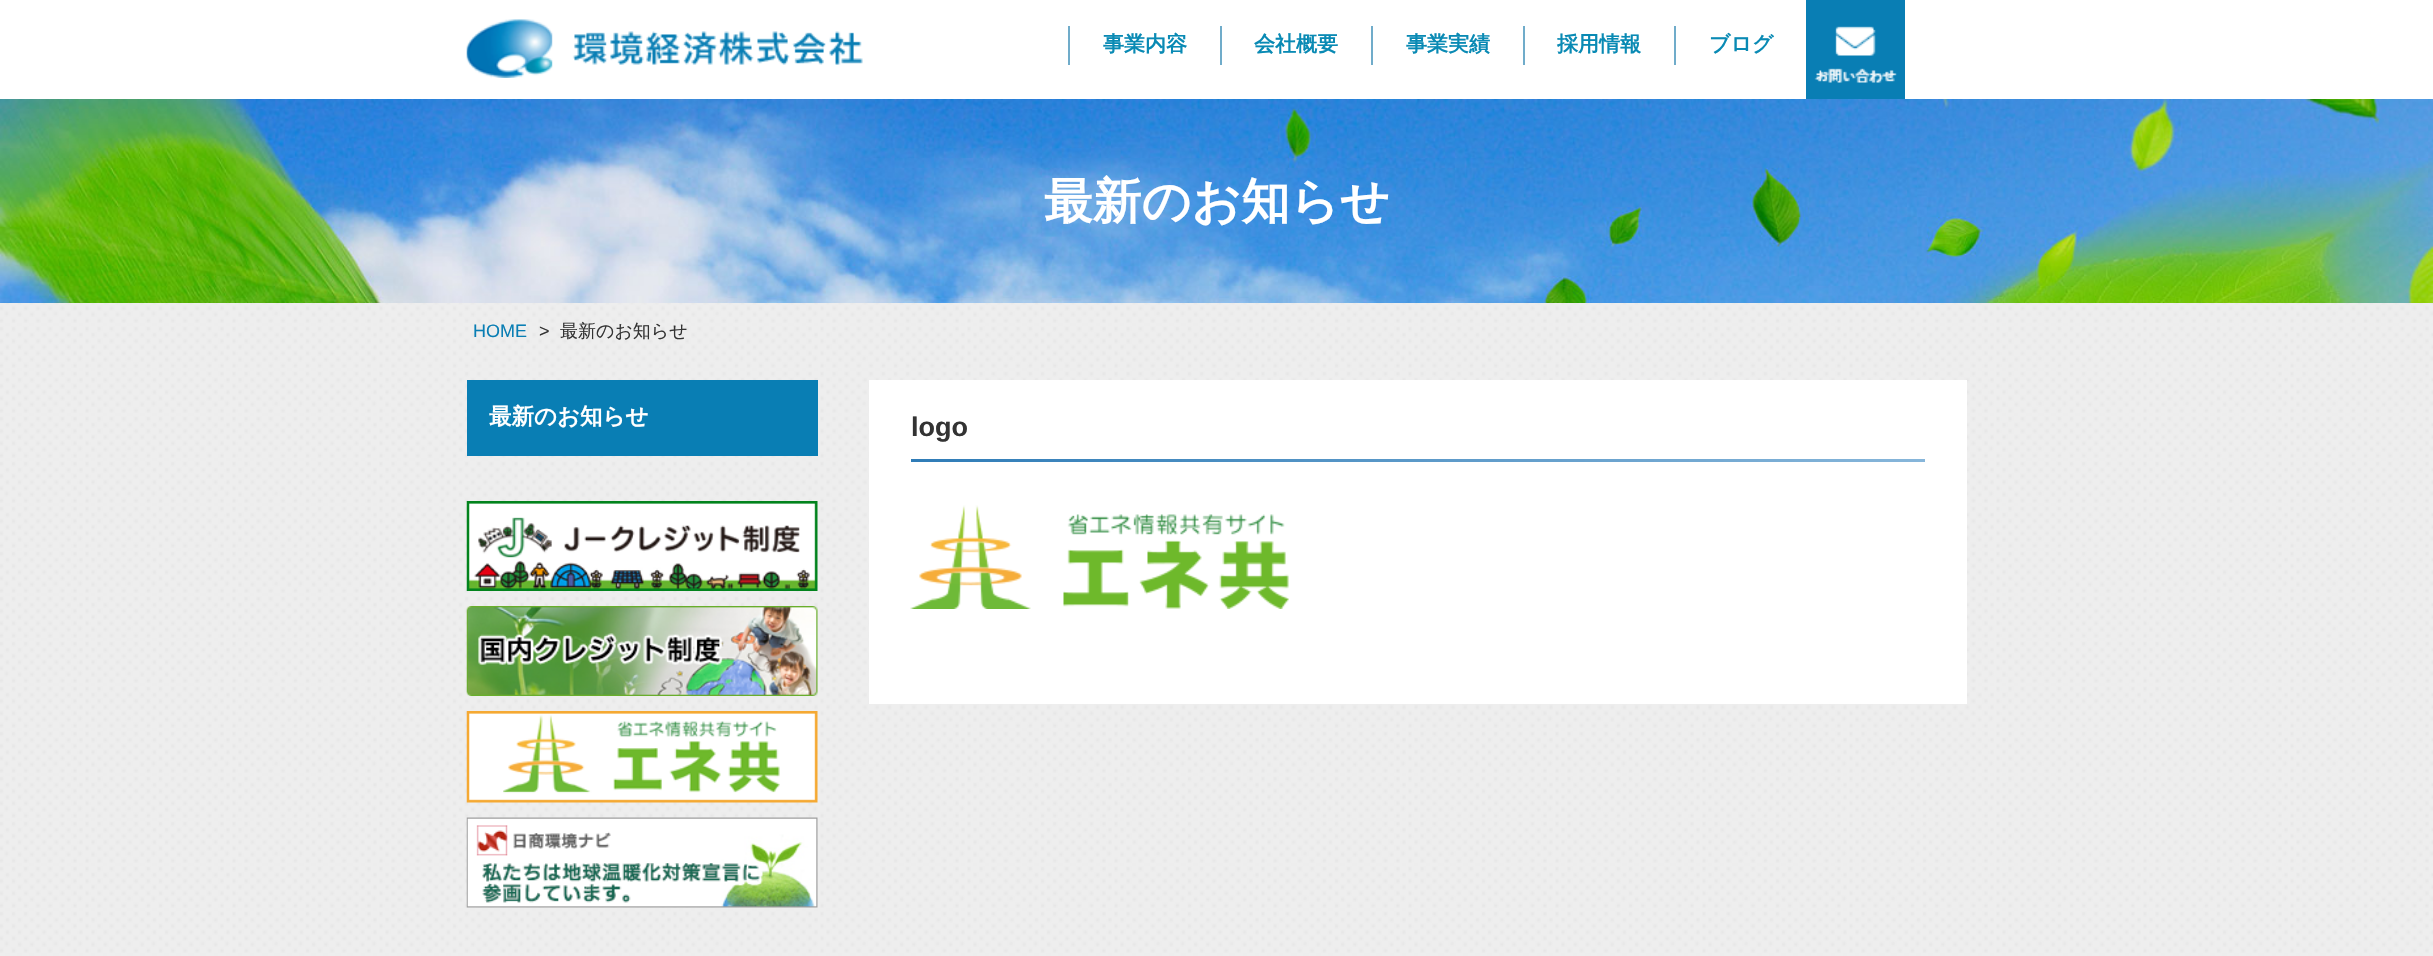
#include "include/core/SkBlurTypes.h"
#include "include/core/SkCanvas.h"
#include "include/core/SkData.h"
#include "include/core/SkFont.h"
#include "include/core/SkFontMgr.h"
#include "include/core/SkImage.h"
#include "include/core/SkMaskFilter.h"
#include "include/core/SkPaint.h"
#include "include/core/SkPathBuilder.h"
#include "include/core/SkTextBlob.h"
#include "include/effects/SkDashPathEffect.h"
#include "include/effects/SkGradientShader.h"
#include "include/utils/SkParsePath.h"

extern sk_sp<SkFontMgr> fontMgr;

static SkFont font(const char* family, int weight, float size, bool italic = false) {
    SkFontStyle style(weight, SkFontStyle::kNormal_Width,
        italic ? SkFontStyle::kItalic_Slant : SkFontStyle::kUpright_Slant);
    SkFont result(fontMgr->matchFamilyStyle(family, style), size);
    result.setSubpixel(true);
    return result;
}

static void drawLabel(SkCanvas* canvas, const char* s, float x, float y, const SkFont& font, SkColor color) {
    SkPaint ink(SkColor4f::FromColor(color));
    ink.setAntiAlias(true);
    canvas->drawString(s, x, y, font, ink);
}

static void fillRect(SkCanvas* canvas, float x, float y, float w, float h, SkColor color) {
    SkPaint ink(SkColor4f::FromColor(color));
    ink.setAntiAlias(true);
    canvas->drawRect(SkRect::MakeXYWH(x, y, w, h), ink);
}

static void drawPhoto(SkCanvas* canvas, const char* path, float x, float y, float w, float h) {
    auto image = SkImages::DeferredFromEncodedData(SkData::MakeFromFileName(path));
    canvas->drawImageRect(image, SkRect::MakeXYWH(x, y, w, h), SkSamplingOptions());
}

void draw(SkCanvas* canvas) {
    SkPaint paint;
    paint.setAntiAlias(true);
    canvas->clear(0xFFFFFFFF);
    drawPhoto(canvas, "assets/img1.png", 466, 19, 397, 59);
    fillRect(canvas, 1068, 26, 2, 39, 0xFF70ACCA);
    SkFont font1 = font("WenQuanYi Zen Hei", 700, 21);
    drawLabel(canvas, "事業内容", 1103, 51, font1, 0xFF098AB4);
    fillRect(canvas, 1220, 26, 2, 39, 0xFF70ACCA);
    drawLabel(canvas, "会社概要", 1254, 51, font1, 0xFF098AB4);
    fillRect(canvas, 1371, 26, 2, 39, 0xFF70ACCA);
    drawLabel(canvas, "事業実績", 1406, 51, font1, 0xFF098AB4);
    fillRect(canvas, 1523, 26, 2, 39, 0xFF70ACCA);
    drawLabel(canvas, "採用情報", 1557, 51, font1, 0xFF098AB4);
    fillRect(canvas, 1674, 26, 2, 39, 0xFF70ACCA);
    drawLabel(canvas, "ブログ", 1709, 51, font1, 0xFF098AB4);
    drawPhoto(canvas, "assets/img2.png", 1806, 0, 99, 99);
    drawPhoto(canvas, "assets/img3.png", 0, 303, 2433, 653);
    drawPhoto(canvas, "assets/img4.png", 0, 99, 2433, 204);
    SkFont font2 = font("WenQuanYi Zen Hei", 700, 48.75f);
    drawLabel(canvas, "最新のお知らせ", 1044, 218, font2, 0xFFFFFFFF);
    SkFont font3 = font("Liberation Sans", 400, 18);
    drawLabel(canvas, "HOME", 473, 337, font3, 0xFF097EB4);
    drawLabel(canvas, ">", 539, 337, font3, 0xFF333333);
    SkFont font4 = font("WenQuanYi Zen Hei", 500, 18);
    drawLabel(canvas, "最新のお知らせ", 560, 337, font4, 0xFF333333);
    fillRect(canvas, 467, 380, 351, 76, 0xFF097EB4);
    SkFont font5 = font("WenQuanYi Zen Hei", 700, 22.5f);
    drawLabel(canvas, "最新のお知らせ", 489, 424, font5, 0xFFFFFFFF);
    drawPhoto(canvas, "assets/img5.png", 466, 501, 352, 90);
    drawPhoto(canvas, "assets/img6.png", 466, 606, 352, 90);
    drawPhoto(canvas, "assets/img7.png", 466, 711, 352, 92);
    drawPhoto(canvas, "assets/img8.png", 466, 817, 352, 91);
    fillRect(canvas, 869, 380, 1098, 324, 0xFFFFFFFF);
    SkFont font6 = font("Liberation Sans", 700, 27);
    drawLabel(canvas, "logo", 911, 436, font6, 0xFF333333);
    {
        const SkColor colors[] = {0xFF2F7CB7, 0xFF87B6DA};
        const float stops[] = {0, 1};
        const SkPoint ends[] = {{911, 461}, {1925, 461}};
        paint.setShader(SkGradientShader::MakeLinear(ends, colors, stops, 2, SkTileMode::kClamp));
        paint.setAlpha(255);
    }
    canvas->drawRect(SkRect::MakeXYWH(911, 459, 1014, 3), paint);
    drawPhoto(canvas, "assets/img9.png", 910, 505, 379, 104);
}
